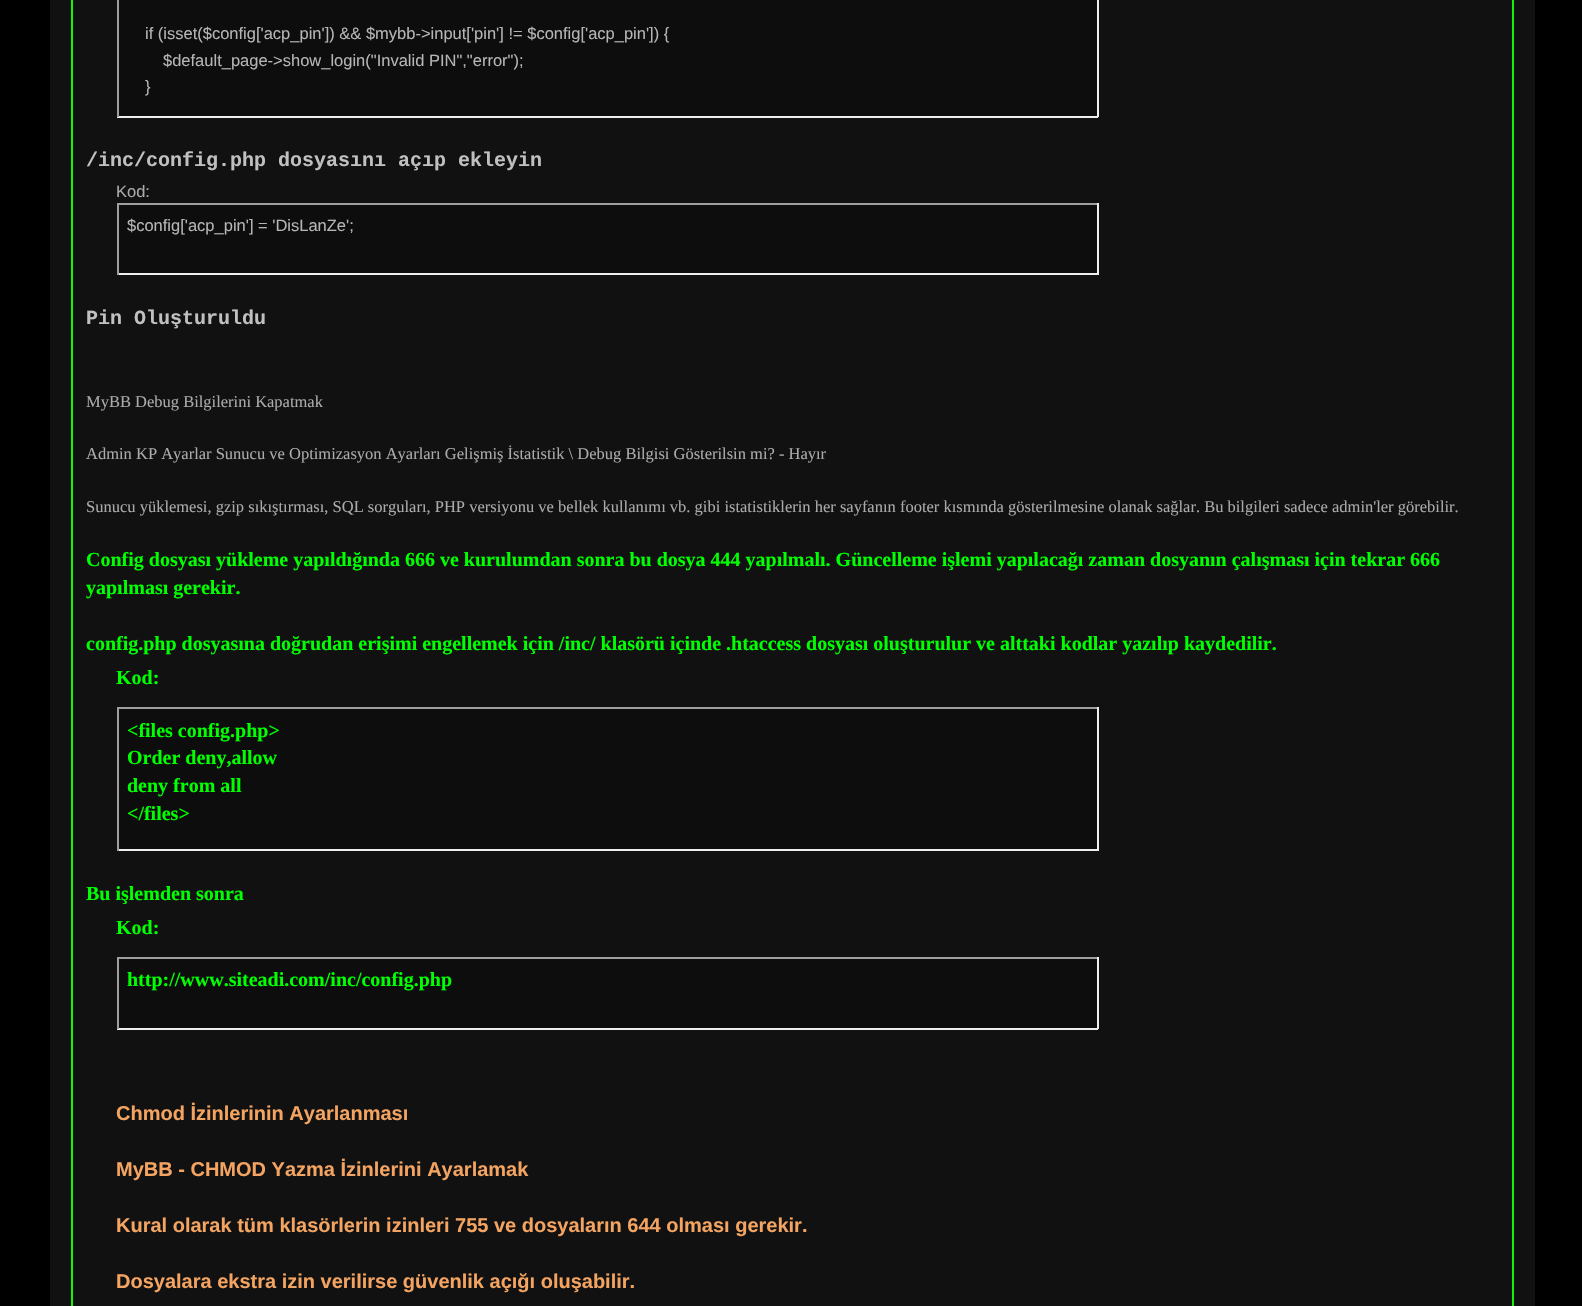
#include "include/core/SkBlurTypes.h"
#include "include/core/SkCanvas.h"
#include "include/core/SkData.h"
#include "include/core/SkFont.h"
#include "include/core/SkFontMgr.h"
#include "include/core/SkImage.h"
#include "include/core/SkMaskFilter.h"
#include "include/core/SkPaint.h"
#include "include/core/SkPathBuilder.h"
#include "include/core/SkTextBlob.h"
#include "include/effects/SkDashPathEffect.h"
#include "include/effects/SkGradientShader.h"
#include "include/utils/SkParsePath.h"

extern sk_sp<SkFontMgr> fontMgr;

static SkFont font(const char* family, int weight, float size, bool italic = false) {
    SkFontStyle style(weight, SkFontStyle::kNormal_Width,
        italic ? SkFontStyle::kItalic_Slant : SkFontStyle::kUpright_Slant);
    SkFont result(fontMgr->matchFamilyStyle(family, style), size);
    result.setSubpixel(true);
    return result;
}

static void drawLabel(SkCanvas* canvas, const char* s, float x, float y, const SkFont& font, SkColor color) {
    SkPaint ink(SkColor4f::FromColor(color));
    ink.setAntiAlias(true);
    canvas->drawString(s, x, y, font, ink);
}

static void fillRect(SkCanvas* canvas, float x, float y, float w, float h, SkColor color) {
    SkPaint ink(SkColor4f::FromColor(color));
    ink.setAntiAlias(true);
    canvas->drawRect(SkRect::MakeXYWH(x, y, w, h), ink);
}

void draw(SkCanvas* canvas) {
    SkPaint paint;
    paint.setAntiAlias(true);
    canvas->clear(0xFF000000);
    fillRect(canvas, 50, 0, 1485, 1306, 0xFF111111);
    paint.setStroke(true);
    paint.setStrokeWidth(2);
    paint.setColor(0xFF11F508);
    canvas->drawRect(SkRect::MakeXYWH(72, -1, 1441, 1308), paint);
    fillRect(canvas, 119, 0, 978, 116, 0xFF0D0D0D);
    fillRect(canvas, 1097, 0, 2, 117, 0xFFEEEEEE);
    fillRect(canvas, 117, 116, 981, 2, 0xFFEEEEEE);
    fillRect(canvas, 117, 0, 2, 117, 0xFF9F9F9F);
    SkFont font1 = font("Liberation Sans", 400, 16.5f);
    drawLabel(canvas, "if (isset($config['acp_pin']) && $mybb->input['pin'] != $config['acp_pin']) {", 145, 39, font1, 0xFFB5B5B5);
    drawLabel(canvas, "$default_page->show_login(\"Invalid PIN\",\"error\");", 163, 66, font1, 0xFFB5B5B5);
    drawLabel(canvas, "}", 145, 92, font1, 0xFFB5B5B5);
    SkFont font2 = font("Liberation Mono", 700, 20);
    drawLabel(canvas, "/inc/config.php dosyasını açıp ekleyin", 86, 166, font2, 0xFFC0C0C0);
    drawLabel(canvas, "Kod:", 116, 197, font1, 0xFFAAAAAA);
    fillRect(canvas, 119, 205, 978, 68, 0xFF0D0D0D);
    fillRect(canvas, 117, 203, 981, 2, 0xFF9F9F9F);
    fillRect(canvas, 1097, 203, 2, 72, 0xFFEEEEEE);
    fillRect(canvas, 117, 273, 981, 2, 0xFFEEEEEE);
    fillRect(canvas, 117, 203, 2, 72, 0xFF9F9F9F);
    drawLabel(canvas, "$config['acp_pin'] = 'DisLanZe';", 127, 231, font1, 0xFFB5B5B5);
    drawLabel(canvas, "Pin Oluşturuldu", 86, 324, font2, 0xFFC0C0C0);
    SkFont font3 = font("Liberation Serif", 400, 16.5f);
    drawLabel(canvas, "MyBB Debug Bilgilerini Kapatmak", 86, 407, font3, 0xFFAAAAAA);
    drawLabel(canvas, "Admin KP Ayarlar Sunucu ve Optimizasyon Ayarları Gelişmiş İstatistik \\ Debug Bilgisi Gösterilsin mi? - Hayır", 86, 459, font3, 0xFFAAAAAA);
    drawLabel(canvas, "Sunucu yüklemesi, gzip sıkıştırması, SQL sorguları, PHP versiyonu ve bellek kullanımı vb. gibi istatistiklerin her sayfanın footer kısmında gösterilmesine olanak sağlar. Bu bilgileri sadece admin'ler görebilir.", 86, 512, font3, 0xFFAAAAAA);
    SkFont font4 = font("Liberation Serif", 700, 20);
    drawLabel(canvas, "Config dosyası yükleme yapıldığında 666 ve kurulumdan sonra bu dosya 444 yapılmalı. Güncelleme işlemi yapılacağı zaman dosyanın çalışması için tekrar 666", 86, 566, font4, 0xFF00FF00);
    drawLabel(canvas, "yapılması gerekir.", 86, 594, font4, 0xFF00FF00);
    drawLabel(canvas, "config.php dosyasına doğrudan erişimi engellemek için /inc/ klasörü içinde .htaccess dosyası oluşturulur ve alttaki kodlar yazılıp kaydedilir.", 86, 650, font4, 0xFF00FF00);
    drawLabel(canvas, "Kod:", 116, 684, font4, 0xFF00FF00);
    fillRect(canvas, 119, 709, 978, 140, 0xFF0D0D0D);
    fillRect(canvas, 117, 707, 981, 2, 0xFF9F9F9F);
    fillRect(canvas, 1097, 707, 2, 144, 0xFFEEEEEE);
    fillRect(canvas, 117, 849, 981, 2, 0xFFEEEEEE);
    fillRect(canvas, 117, 707, 2, 144, 0xFF9F9F9F);
    drawLabel(canvas, "<files config.php>", 127, 737, font4, 0xFF00FF00);
    drawLabel(canvas, "Order deny,allow", 127, 764, font4, 0xFF00FF00);
    drawLabel(canvas, "deny from all", 127, 792, font4, 0xFF00FF00);
    drawLabel(canvas, "</files>", 127, 820, font4, 0xFF00FF00);
    drawLabel(canvas, "Bu işlemden sonra", 86, 900, font4, 0xFF00FF00);
    drawLabel(canvas, "Kod:", 116, 934, font4, 0xFF00FF00);
    fillRect(canvas, 119, 959, 978, 69, 0xFF0D0D0D);
    fillRect(canvas, 117, 957, 981, 2, 0xFF9F9F9F);
    fillRect(canvas, 1097, 957, 2, 72, 0xFFEEEEEE);
    fillRect(canvas, 117, 1028, 981, 2, 0xFFEEEEEE);
    fillRect(canvas, 117, 957, 2, 72, 0xFF9F9F9F);
    drawLabel(canvas, "http://www.siteadi.com/inc/config.php", 127, 986, font4, 0xFF00FF00);
    SkFont font5 = font("Liberation Sans", 700, 20);
    drawLabel(canvas, "Chmod İzinlerinin Ayarlanması", 116, 1120, font5, 0xFFF4A460);
    drawLabel(canvas, "MyBB - CHMOD Yazma İzinlerini Ayarlamak", 116, 1176, font5, 0xFFF4A460);
    drawLabel(canvas, "Kural olarak tüm klasörlerin izinleri 755 ve dosyaların 644 olması gerekir.", 116, 1232, font5, 0xFFF4A460);
    drawLabel(canvas, "Dosyalara ekstra izin verilirse güvenlik açığı oluşabilir.", 116, 1288, font5, 0xFFF4A460);
}
